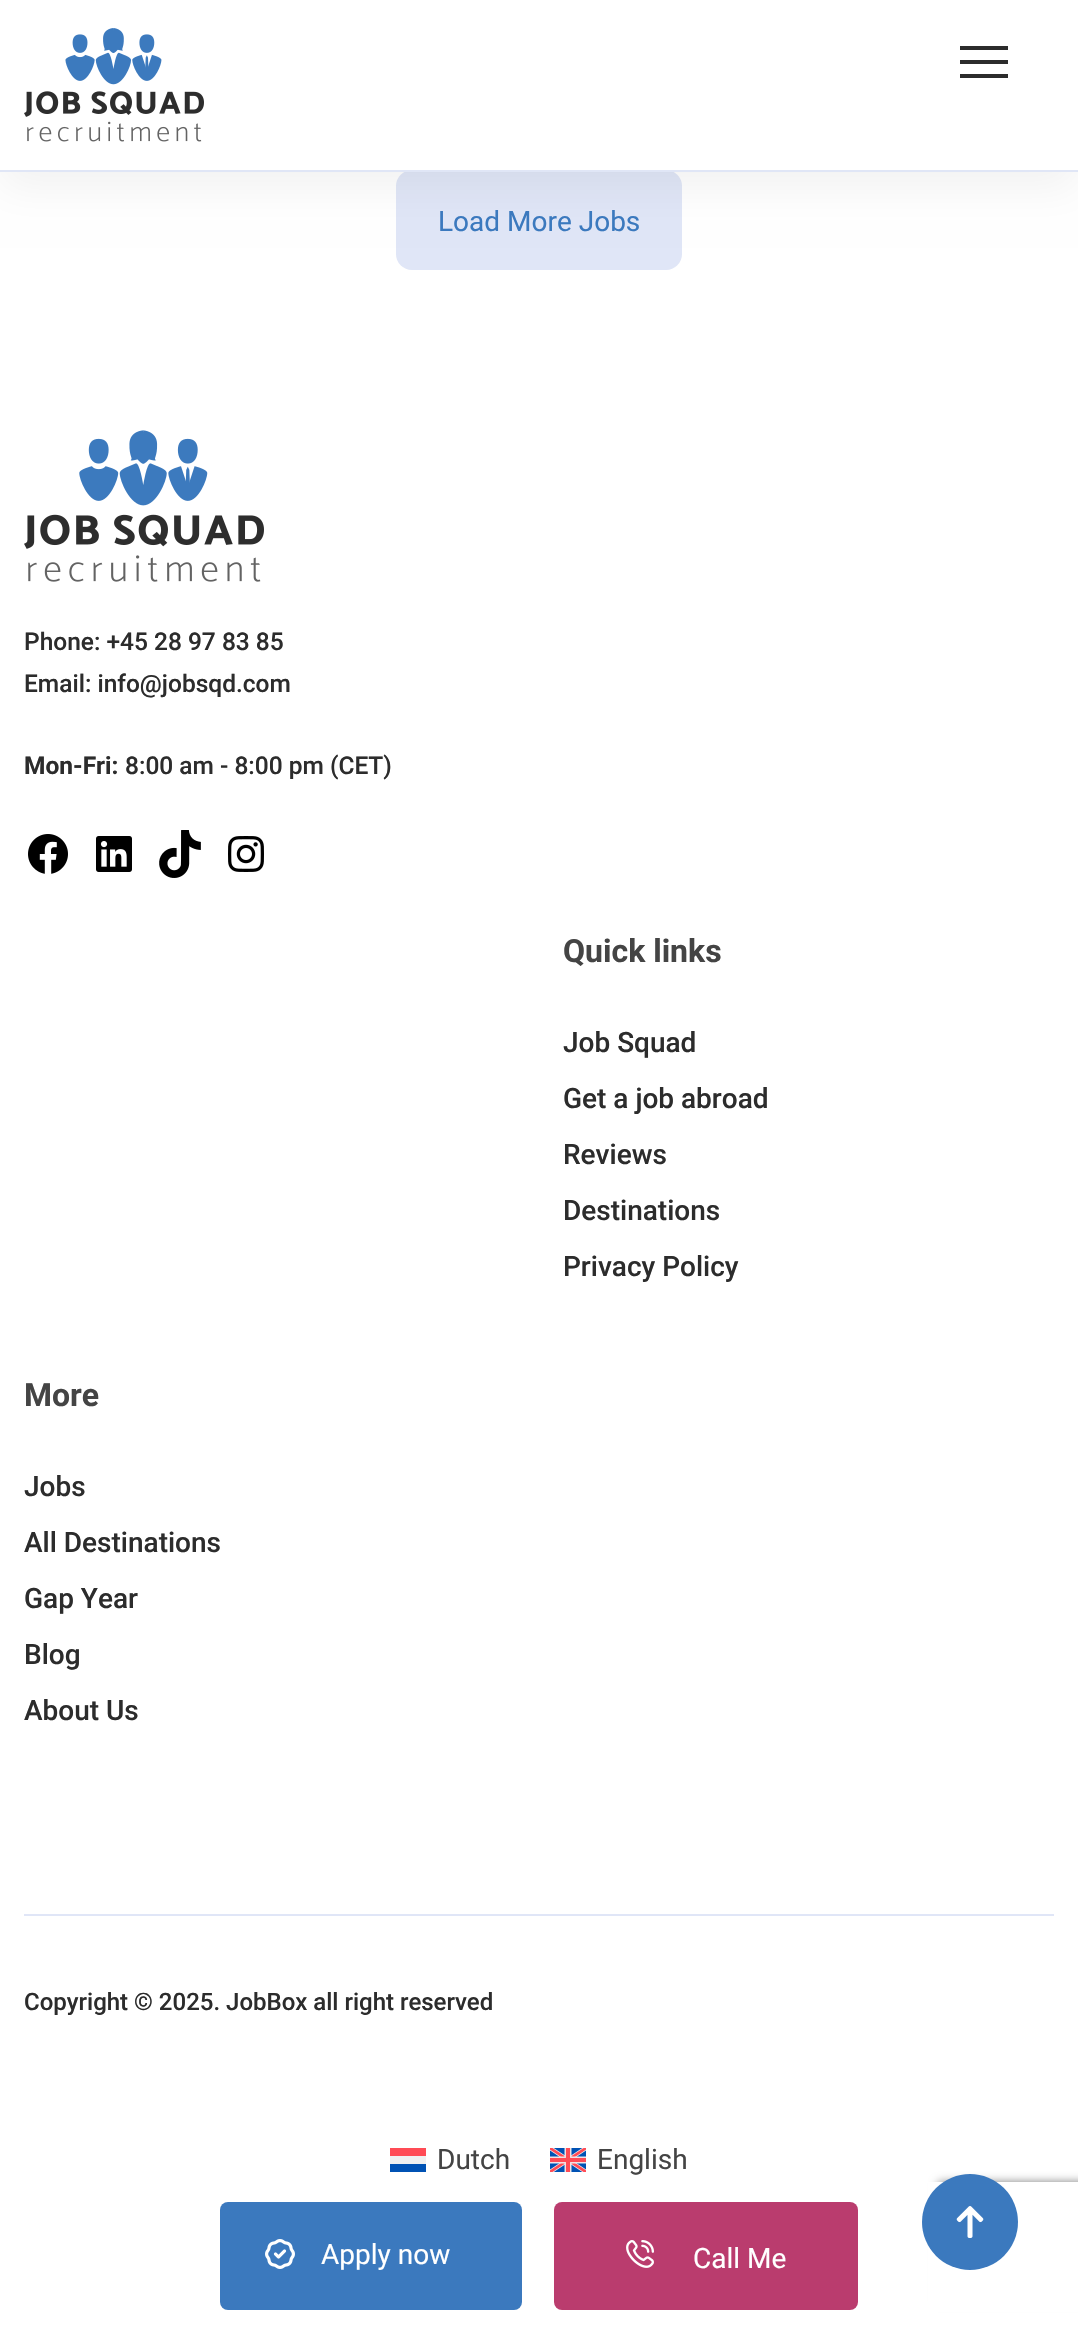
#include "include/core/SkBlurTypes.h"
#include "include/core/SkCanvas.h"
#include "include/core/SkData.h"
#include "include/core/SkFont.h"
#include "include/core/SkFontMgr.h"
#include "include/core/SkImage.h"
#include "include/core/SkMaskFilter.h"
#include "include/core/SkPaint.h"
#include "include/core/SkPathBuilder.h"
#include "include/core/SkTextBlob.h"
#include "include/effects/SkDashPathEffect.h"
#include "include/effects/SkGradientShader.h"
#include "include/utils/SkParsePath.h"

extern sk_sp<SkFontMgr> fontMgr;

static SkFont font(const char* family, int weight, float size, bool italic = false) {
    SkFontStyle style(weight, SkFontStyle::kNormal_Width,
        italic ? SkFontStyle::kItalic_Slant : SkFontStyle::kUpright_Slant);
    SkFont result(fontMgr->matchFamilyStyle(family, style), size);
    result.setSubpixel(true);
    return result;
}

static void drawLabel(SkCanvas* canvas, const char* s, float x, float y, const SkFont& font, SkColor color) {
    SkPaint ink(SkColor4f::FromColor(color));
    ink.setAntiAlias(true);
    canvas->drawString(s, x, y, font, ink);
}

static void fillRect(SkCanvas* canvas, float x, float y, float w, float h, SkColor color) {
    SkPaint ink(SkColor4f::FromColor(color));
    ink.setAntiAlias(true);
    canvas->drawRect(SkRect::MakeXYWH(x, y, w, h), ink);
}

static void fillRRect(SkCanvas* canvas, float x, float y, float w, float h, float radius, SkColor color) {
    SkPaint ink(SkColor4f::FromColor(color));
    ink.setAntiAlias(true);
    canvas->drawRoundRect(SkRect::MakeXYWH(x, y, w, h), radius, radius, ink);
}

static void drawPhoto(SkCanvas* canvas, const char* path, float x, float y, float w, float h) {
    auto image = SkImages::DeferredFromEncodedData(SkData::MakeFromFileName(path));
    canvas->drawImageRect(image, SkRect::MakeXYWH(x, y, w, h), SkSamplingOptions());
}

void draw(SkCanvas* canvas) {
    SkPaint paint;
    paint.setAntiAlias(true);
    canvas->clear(0xFFFFFFFF);
    fillRRect(canvas, 396, 170, 286, 100, 16, 0xFFE0E6F7);
    paint.setColor(0x0D000000);
    paint.setMaskFilter(SkMaskFilter::MakeBlur(kNormal_SkBlurStyle, 20));
    canvas->drawRect(SkRect::MakeXYWH(0, 16, 1078, 172), paint);
    paint.setMaskFilter(nullptr);
    fillRect(canvas, 0, 0, 1078, 170, 0xFFFFFFFF);
    fillRect(canvas, 0, 170, 1078, 2, 0xFFE0E6F6);
    drawPhoto(canvas, "assets/img1.png", 24, 28, 180, 114);
    fillRect(canvas, 960, 46, 48, 4, 0xFF2C2C2C);
    fillRect(canvas, 960, 60, 48, 4, 0xFF2C2C2C);
    fillRect(canvas, 960, 74, 48, 4, 0xFF2C2C2C);
    SkFont font1 = font("Roboto", 400, 28);
    drawLabel(canvas, "Load More Jobs", 438, 231, font1, 0xFF3B79BE);
    paint.setColor(0xFF808080);
    paint.setMaskFilter(SkMaskFilter::MakeBlur(kNormal_SkBlurStyle, 5));
    canvas->drawRoundRect(SkRect::MakeXYWH(938, 2182, 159, 120), 4, 4, paint);
    paint.setMaskFilter(nullptr);
    fillRect(canvas, 928, 2182, 150, 130, 0xFFFFFFFF);
    fillRRect(canvas, 220, 2202, 302, 108, 8, 0xFF3B79BE);
    drawPhoto(canvas, "assets/img2.png", 265, 2239, 30, 30);
    drawLabel(canvas, "Apply now", 321, 2264, font1, 0xFFFFFFFF);
    fillRRect(canvas, 554, 2202, 304, 108, 8, 0xFFBA3C6E);
    drawPhoto(canvas, "assets/img3.png", 626, 2240, 28, 28);
    drawLabel(canvas, "Call Me", 693, 2268, font1, 0xFFFFFFFF);
    drawPhoto(canvas, "assets/img4.png", 24, 430, 240, 152);
    SkFont font2 = font("Roboto", 500, 24.5f);
    drawLabel(canvas, "Phone: +45 28 97 83 85", 24, 650, font2, 0xFF2C2C2C);
    drawLabel(canvas, "Email: info@jobsqd.com", 24, 692, font2, 0xFF2C2C2C);
    SkFont font3 = font("Roboto", 700, 24.5f);
    drawLabel(canvas, "Mon-Fri:", 24, 774, font3, 0xFF2C2C2C);
    drawLabel(canvas, "8:00 am - 8:00 pm (CET)", 125, 774, font2, 0xFF2C2C2C);
    drawPhoto(canvas, "assets/img5.png", 28, 834, 40, 40);
    drawPhoto(canvas, "assets/img6.png", 96, 836, 36, 36);
    drawPhoto(canvas, "assets/img7.png", 159, 830, 42, 48);
    drawPhoto(canvas, "assets/img8.png", 228, 836, 36, 36);
    SkFont font4 = font("Roboto", 700, 32);
    drawLabel(canvas, "Quick links", 563, 962, font4, 0xFF444444);
    SkFont font5 = font("Roboto", 500, 28);
    drawLabel(canvas, "Job Squad", 563, 1052, font5, 0xFF2C2C2C);
    drawLabel(canvas, "Get a job abroad", 563, 1108, font5, 0xFF2C2C2C);
    drawLabel(canvas, "Reviews", 563, 1164, font5, 0xFF2C2C2C);
    drawLabel(canvas, "Destinations", 563, 1220, font5, 0xFF2C2C2C);
    drawLabel(canvas, "Privacy Policy", 563, 1276, font5, 0xFF2C2C2C);
    drawLabel(canvas, "More", 24, 1406, font4, 0xFF444444);
    drawLabel(canvas, "Jobs", 24, 1496, font5, 0xFF2C2C2C);
    drawLabel(canvas, "All Destinations", 24, 1552, font5, 0xFF2C2C2C);
    drawLabel(canvas, "Gap Year", 24, 1608, font5, 0xFF2C2C2C);
    drawLabel(canvas, "Blog", 24, 1664, font5, 0xFF2C2C2C);
    drawLabel(canvas, "About Us", 24, 1720, font5, 0xFF2C2C2C);
    fillRect(canvas, 24, 1914, 1030, 2, 0xFFE0E6F7);
    SkFont font6 = font("Roboto", 500, 24);
    drawLabel(canvas, "Copyright © 2025. JobBox all right reserved", 24, 2010, font6, 0xFF2C2C2C);
    fillRect(canvas, 390, 2148, 36, 8, 0xFFFF4B55);
    drawLabel(canvas, "Dutch", 437, 2169, font1, 0xFF444444);
    fillRect(canvas, 390, 2156, 36, 8, 0xFFF0F0F0);
    fillRect(canvas, 390, 2164, 36, 8, 0xFF0052B4);
    drawPhoto(canvas, "assets/img9.png", 550, 2148, 36, 24);
    drawLabel(canvas, "English", 597, 2169, font1, 0xFF444444);
    paint.setColor(0xFF3B79BE);
    canvas->drawCircle(970, 2222, 48, paint);
    drawPhoto(canvas, "assets/img10.png", 956, 2206, 28, 32);
}
